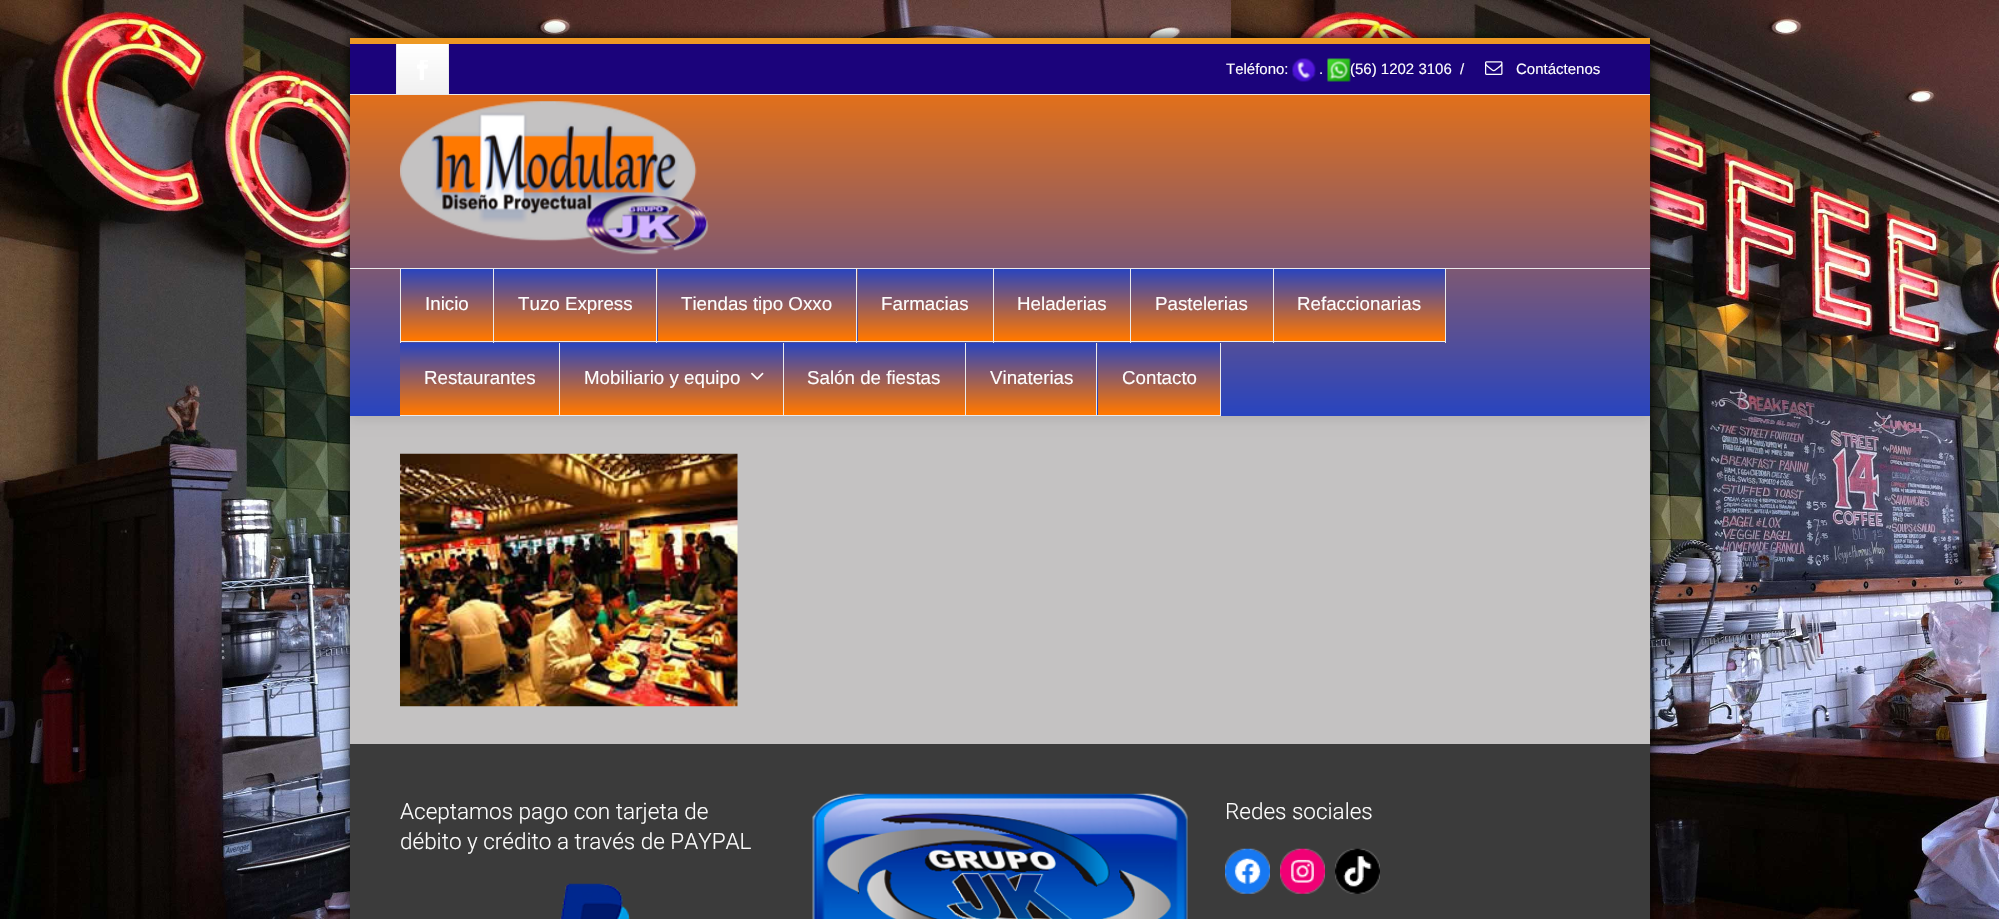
#include "include/core/SkBlurTypes.h"
#include "include/core/SkCanvas.h"
#include "include/core/SkData.h"
#include "include/core/SkFont.h"
#include "include/core/SkFontMgr.h"
#include "include/core/SkImage.h"
#include "include/core/SkMaskFilter.h"
#include "include/core/SkPaint.h"
#include "include/core/SkPathBuilder.h"
#include "include/core/SkTextBlob.h"
#include "include/effects/SkDashPathEffect.h"
#include "include/effects/SkGradientShader.h"
#include "include/utils/SkParsePath.h"

extern sk_sp<SkFontMgr> fontMgr;

static SkFont font(const char* family, int weight, float size, bool italic = false) {
    SkFontStyle style(weight, SkFontStyle::kNormal_Width,
        italic ? SkFontStyle::kItalic_Slant : SkFontStyle::kUpright_Slant);
    SkFont result(fontMgr->matchFamilyStyle(family, style), size);
    result.setSubpixel(true);
    return result;
}

static void drawLabel(SkCanvas* canvas, const char* s, float x, float y, const SkFont& font, SkColor color) {
    SkPaint ink(SkColor4f::FromColor(color));
    ink.setAntiAlias(true);
    canvas->drawString(s, x, y, font, ink);
}

static void fillRect(SkCanvas* canvas, float x, float y, float w, float h, SkColor color) {
    SkPaint ink(SkColor4f::FromColor(color));
    ink.setAntiAlias(true);
    canvas->drawRect(SkRect::MakeXYWH(x, y, w, h), ink);
}

static void drawPhoto(SkCanvas* canvas, const char* path, float x, float y, float w, float h) {
    auto image = SkImages::DeferredFromEncodedData(SkData::MakeFromFileName(path));
    canvas->drawImageRect(image, SkRect::MakeXYWH(x, y, w, h), SkSamplingOptions());
}

void draw(SkCanvas* canvas) {
    SkPaint paint;
    paint.setAntiAlias(true);
    canvas->clear(0xFFFFFFFF);
    drawPhoto(canvas, "assets/img1.png", 0, 0, 1999, 919);
    paint.setColor(0xFF000000);
    paint.setMaskFilter(SkMaskFilter::MakeBlur(kNormal_SkBlurStyle, 6));
    canvas->drawRect(SkRect::MakeXYWH(350, 38, 1300, 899), paint);
    paint.setMaskFilter(nullptr);
    fillRect(canvas, 350, 416, 1300, 328, 0xFFC4C2C2);
    fillRect(canvas, 350, 38, 1300, 6, 0xFFED9923);
    canvas->save();
    canvas->clipRect(SkRect::MakeXYWH(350, 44, 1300, 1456));
    paint.setColor(0x1A000000);
    paint.setMaskFilter(SkMaskFilter::MakeBlur(kNormal_SkBlurStyle, 6));
    canvas->drawRect(SkRect::MakeXYWH(350, 46, 1300, 373), paint);
    paint.setMaskFilter(nullptr);
    canvas->restore();
    fillRect(canvas, 350, 94, 1300, 1, 0xFFEBEBEB);
    fillRect(canvas, 350, 44, 1300, 50, 0xFF1B037B);
    {
        const SkColor colors[] = {0xFFFFFFFF, 0xFFF1F1F1};
        const float stops[] = {0, 1};
        const SkPoint ends[] = {{423, 44}, {423, 94}};
        paint.setShader(SkGradientShader::MakeLinear(ends, colors, stops, 2, SkTileMode::kClamp));
        paint.setAlpha(255);
    }
    canvas->drawRect(SkRect::MakeXYWH(397, 44, 51, 50), paint);
    fillRect(canvas, 448, 44, 1, 50, 0xFFEBEBEB);
    fillRect(canvas, 396, 44, 1, 50, 0xFFEBEBEB);
    drawPhoto(canvas, "assets/img2.png", 417, 60, 11, 20);
    SkFont font1 = font("Liberation Sans", 400, 15);
    drawLabel(canvas, "Teléfono:", 1226, 74, font1, 0xFFFDFDFD);
    drawPhoto(canvas, "assets/img3.png", 1292, 58, 24, 24);
    drawLabel(canvas, ".", 1319, 74, font1, 0xFFFDFDFD);
    drawPhoto(canvas, "assets/img4.png", 1327, 58, 24, 24);
    drawLabel(canvas, "(56) 1202 3106", 1350, 74, font1, 0xFFFDFDFD);
    drawLabel(canvas, "/", 1460, 74, font1, 0xFFFDFDFD);
    drawPhoto(canvas, "assets/img5.png", 1485, 61, 18, 14);
    drawLabel(canvas, "Contáctenos", 1516, 74, font1, 0xFFFDFDFD);
    {
        const SkColor colors[] = {0xFFFF7700, 0xFF2844BF};
        const float stops[] = {0, 1};
        const SkPoint ends[] = {{1000, 44}, {1000, 416}};
        paint.setShader(SkGradientShader::MakeLinear(ends, colors, stops, 2, SkTileMode::kClamp));
        paint.setAlpha(255);
    }
    canvas->drawRect(SkRect::MakeXYWH(350, 95, 1300, 321), paint);
    drawPhoto(canvas, "assets/img6.png", 400, 101, 309, 154);
    fillRect(canvas, 350, 268, 1300, 1, 0xFFEBEBEB);
    fillRect(canvas, 493, 269, 1, 74, 0xFFEBEBEB);
    fillRect(canvas, 400, 341, 94, 1, 0xFFEBEBEB);
    fillRect(canvas, 400, 269, 1, 74, 0xFFEBEBEB);
    fillRect(canvas, 401, 339, 92, 2, 0xFFFF7700);
    {
        const SkColor colors[] = {0xFF2844BF, 0xFFFF7700};
        const float stops[] = {0, 1};
        const SkPoint ends[] = {{447, 269}, {447, 339}};
        paint.setShader(SkGradientShader::MakeLinear(ends, colors, stops, 2, SkTileMode::kClamp));
        paint.setAlpha(255);
    }
    canvas->drawRect(SkRect::MakeXYWH(401, 269, 92, 70), paint);
    SkFont font2 = font("Liberation Sans", 400, 18.75f);
    drawLabel(canvas, "Inicio", 425, 310, font2, 0xFFFDFDFD);
    fillRect(canvas, 656, 269, 1, 74, 0xFFEBEBEB);
    fillRect(canvas, 494, 341, 164, 1, 0xFFEBEBEB);
    fillRect(canvas, 494, 339, 162, 2, 0xFFFF7700);
    {
        const SkColor colors[] = {0xFF2844BF, 0xFFFF7700};
        const float stops[] = {0, 1};
        const SkPoint ends[] = {{575, 269}, {575, 339}};
        paint.setShader(SkGradientShader::MakeLinear(ends, colors, stops, 2, SkTileMode::kClamp));
        paint.setAlpha(255);
    }
    canvas->drawRect(SkRect::MakeXYWH(494, 269, 162, 70), paint);
    drawLabel(canvas, "Tuzo Express", 518, 310, font2, 0xFFFDFDFD);
    fillRect(canvas, 856, 269, 1, 74, 0xFFEBEBEB);
    fillRect(canvas, 658, 341, 200, 1, 0xFFEBEBEB);
    fillRect(canvas, 658, 339, 198, 2, 0xFFFF7700);
    {
        const SkColor colors[] = {0xFF2844BF, 0xFFFF7700};
        const float stops[] = {0, 1};
        const SkPoint ends[] = {{757, 269}, {757, 339}};
        paint.setShader(SkGradientShader::MakeLinear(ends, colors, stops, 2, SkTileMode::kClamp));
        paint.setAlpha(255);
    }
    canvas->drawRect(SkRect::MakeXYWH(658, 269, 198, 70), paint);
    drawLabel(canvas, "Tiendas tipo Oxxo", 681, 310, font2, 0xFFFDFDFD);
    fillRect(canvas, 993, 269, 1, 74, 0xFFEBEBEB);
    fillRect(canvas, 858, 341, 136, 1, 0xFFEBEBEB);
    fillRect(canvas, 858, 339, 135, 2, 0xFFFF7700);
    {
        const SkColor colors[] = {0xFF2844BF, 0xFFFF7700};
        const float stops[] = {0, 1};
        const SkPoint ends[] = {{925, 269}, {925, 339}};
        paint.setShader(SkGradientShader::MakeLinear(ends, colors, stops, 2, SkTileMode::kClamp));
        paint.setAlpha(255);
    }
    canvas->drawRect(SkRect::MakeXYWH(858, 269, 135, 70), paint);
    drawLabel(canvas, "Farmacias", 881, 310, font2, 0xFFFDFDFD);
    fillRect(canvas, 1130, 269, 1, 74, 0xFFEBEBEB);
    fillRect(canvas, 994, 341, 137, 1, 0xFFEBEBEB);
    fillRect(canvas, 994, 339, 136, 2, 0xFFFF7700);
    {
        const SkColor colors[] = {0xFF2844BF, 0xFFFF7700};
        const float stops[] = {0, 1};
        const SkPoint ends[] = {{1062, 269}, {1062, 339}};
        paint.setShader(SkGradientShader::MakeLinear(ends, colors, stops, 2, SkTileMode::kClamp));
        paint.setAlpha(255);
    }
    canvas->drawRect(SkRect::MakeXYWH(994, 269, 136, 70), paint);
    drawLabel(canvas, "Heladerias", 1017, 310, font2, 0xFFFDFDFD);
    fillRect(canvas, 1273, 269, 1, 74, 0xFFEBEBEB);
    fillRect(canvas, 1131, 341, 143, 1, 0xFFEBEBEB);
    fillRect(canvas, 1131, 339, 142, 2, 0xFFFF7700);
    {
        const SkColor colors[] = {0xFF2844BF, 0xFFFF7700};
        const float stops[] = {0, 1};
        const SkPoint ends[] = {{1202, 269}, {1202, 339}};
        paint.setShader(SkGradientShader::MakeLinear(ends, colors, stops, 2, SkTileMode::kClamp));
        paint.setAlpha(255);
    }
    canvas->drawRect(SkRect::MakeXYWH(1131, 269, 142, 70), paint);
    drawLabel(canvas, "Pastelerias", 1155, 310, font2, 0xFFFDFDFD);
    fillRect(canvas, 1445, 269, 1, 74, 0xFFEBEBEB);
    fillRect(canvas, 1274, 341, 172, 1, 0xFFEBEBEB);
    fillRect(canvas, 1274, 339, 171, 2, 0xFFFF7700);
    {
        const SkColor colors[] = {0xFF2844BF, 0xFFFF7700};
        const float stops[] = {0, 1};
        const SkPoint ends[] = {{1359, 269}, {1359, 339}};
        paint.setShader(SkGradientShader::MakeLinear(ends, colors, stops, 2, SkTileMode::kClamp));
        paint.setAlpha(255);
    }
    canvas->drawRect(SkRect::MakeXYWH(1274, 269, 171, 70), paint);
    drawLabel(canvas, "Refaccionarias", 1297, 310, font2, 0xFFFDFDFD);
    fillRect(canvas, 559, 343, 1, 73, 0xFFEBEBEB);
    fillRect(canvas, 400, 415, 160, 1, 0xFFEBEBEB);
    fillRect(canvas, 400, 413, 159, 2, 0xFFFF7700);
    {
        const SkColor colors[] = {0xFF2844BF, 0xFFFF7700};
        const float stops[] = {0, 1};
        const SkPoint ends[] = {{479, 343}, {479, 413}};
        paint.setShader(SkGradientShader::MakeLinear(ends, colors, stops, 2, SkTileMode::kClamp));
        paint.setAlpha(255);
    }
    canvas->drawRect(SkRect::MakeXYWH(400, 343, 159, 70), paint);
    drawLabel(canvas, "Restaurantes", 424, 384, font2, 0xFFFDFDFD);
    fillRect(canvas, 783, 343, 1, 73, 0xFFEBEBEB);
    fillRect(canvas, 560, 415, 224, 1, 0xFFEBEBEB);
    fillRect(canvas, 560, 413, 223, 2, 0xFFFF7700);
    {
        const SkColor colors[] = {0xFF2844BF, 0xFFFF7700};
        const float stops[] = {0, 1};
        const SkPoint ends[] = {{671, 343}, {671, 413}};
        paint.setShader(SkGradientShader::MakeLinear(ends, colors, stops, 2, SkTileMode::kClamp));
        paint.setAlpha(255);
    }
    canvas->drawRect(SkRect::MakeXYWH(560, 343, 223, 70), paint);
    drawLabel(canvas, "Mobiliario y equipo", 584, 384, font2, 0xFFFDFDFD);
    drawPhoto(canvas, "assets/img7.png", 751, 372, 13, 8);
    fillRect(canvas, 965, 343, 1, 73, 0xFFEBEBEB);
    fillRect(canvas, 784, 415, 182, 1, 0xFFEBEBEB);
    fillRect(canvas, 784, 413, 181, 2, 0xFFFF7700);
    {
        const SkColor colors[] = {0xFF2844BF, 0xFFFF7700};
        const float stops[] = {0, 1};
        const SkPoint ends[] = {{874, 343}, {874, 413}};
        paint.setShader(SkGradientShader::MakeLinear(ends, colors, stops, 2, SkTileMode::kClamp));
        paint.setAlpha(255);
    }
    canvas->drawRect(SkRect::MakeXYWH(784, 343, 181, 70), paint);
    drawLabel(canvas, "Salón de fiestas", 807, 384, font2, 0xFFFDFDFD);
    fillRect(canvas, 1096, 343, 1, 73, 0xFFEBEBEB);
    fillRect(canvas, 966, 415, 132, 1, 0xFFEBEBEB);
    fillRect(canvas, 966, 413, 130, 2, 0xFFFF7700);
    {
        const SkColor colors[] = {0xFF2844BF, 0xFFFF7700};
        const float stops[] = {0, 1};
        const SkPoint ends[] = {{1031, 343}, {1031, 413}};
        paint.setShader(SkGradientShader::MakeLinear(ends, colors, stops, 2, SkTileMode::kClamp));
        paint.setAlpha(255);
    }
    canvas->drawRect(SkRect::MakeXYWH(966, 343, 130, 70), paint);
    drawLabel(canvas, "Vinaterias", 990, 384, font2, 0xFFFDFDFD);
    fillRect(canvas, 1220, 343, 1, 73, 0xFFEBEBEB);
    fillRect(canvas, 1098, 415, 123, 1, 0xFFEBEBEB);
    fillRect(canvas, 1098, 413, 122, 2, 0xFFFF7700);
    {
        const SkColor colors[] = {0xFF2844BF, 0xFFFF7700};
        const float stops[] = {0, 1};
        const SkPoint ends[] = {{1159, 343}, {1159, 413}};
        paint.setShader(SkGradientShader::MakeLinear(ends, colors, stops, 2, SkTileMode::kClamp));
        paint.setAlpha(255);
    }
    canvas->drawRect(SkRect::MakeXYWH(1098, 343, 122, 70), paint);
    drawLabel(canvas, "Contacto", 1122, 384, font2, 0xFFFDFDFD);
    drawPhoto(canvas, "assets/img8.png", 400, 453, 338, 254);
    fillRect(canvas, 350, 744, 1300, 175, 0xFF3B3B3B);
    SkFont font3 = font("Roboto", 300, 22.5f);
    drawLabel(canvas, "Aceptamos pago con tarjeta de", 400, 819, font3, 0xFFFDFDFD);
    drawLabel(canvas, "débito y crédito a través de PAYPAL", 400, 849, font3, 0xFFFDFDFD);
    drawPhoto(canvas, "assets/img9.png", 560, 883, 70, 36);
    drawPhoto(canvas, "assets/img10.png", 812, 793, 376, 126);
    drawLabel(canvas, "Redes sociales", 1225, 819, font3, 0xFFFDFDFD);
    drawPhoto(canvas, "assets/img11.png", 1225, 848, 45, 46);
    drawPhoto(canvas, "assets/img12.png", 1280, 848, 45, 46);
    drawPhoto(canvas, "assets/img13.png", 1335, 848, 45, 46);
}
